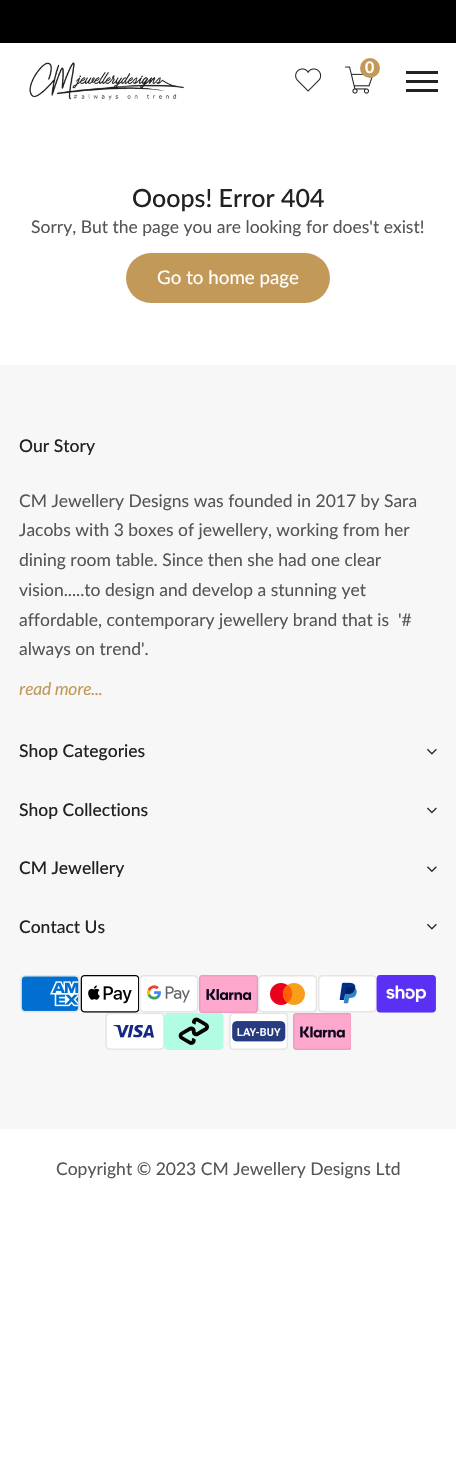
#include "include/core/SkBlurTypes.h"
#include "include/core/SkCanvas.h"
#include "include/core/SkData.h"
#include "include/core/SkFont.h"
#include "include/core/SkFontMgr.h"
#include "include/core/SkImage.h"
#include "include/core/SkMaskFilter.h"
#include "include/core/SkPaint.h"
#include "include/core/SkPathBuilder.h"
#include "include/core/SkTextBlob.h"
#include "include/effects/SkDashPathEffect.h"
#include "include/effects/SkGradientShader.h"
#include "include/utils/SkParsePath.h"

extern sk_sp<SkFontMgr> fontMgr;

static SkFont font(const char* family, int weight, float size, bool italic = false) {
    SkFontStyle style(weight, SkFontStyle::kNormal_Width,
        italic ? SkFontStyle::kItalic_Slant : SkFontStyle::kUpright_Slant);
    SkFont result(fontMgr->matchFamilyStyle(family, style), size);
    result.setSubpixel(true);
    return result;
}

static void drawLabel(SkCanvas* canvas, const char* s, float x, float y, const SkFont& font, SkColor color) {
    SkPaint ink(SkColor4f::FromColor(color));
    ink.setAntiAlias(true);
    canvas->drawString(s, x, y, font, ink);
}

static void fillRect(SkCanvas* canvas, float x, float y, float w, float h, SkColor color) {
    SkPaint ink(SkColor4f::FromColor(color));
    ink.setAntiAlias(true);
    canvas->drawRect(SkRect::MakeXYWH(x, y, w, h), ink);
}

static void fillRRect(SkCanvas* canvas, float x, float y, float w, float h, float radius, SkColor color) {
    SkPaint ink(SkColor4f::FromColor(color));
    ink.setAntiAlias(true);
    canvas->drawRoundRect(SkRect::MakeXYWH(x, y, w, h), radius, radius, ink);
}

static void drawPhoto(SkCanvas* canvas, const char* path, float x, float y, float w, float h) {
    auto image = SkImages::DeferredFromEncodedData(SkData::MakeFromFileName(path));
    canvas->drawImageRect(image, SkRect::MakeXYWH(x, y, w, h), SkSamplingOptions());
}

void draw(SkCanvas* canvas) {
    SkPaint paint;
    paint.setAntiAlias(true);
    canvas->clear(0xFFFFFFFF);
    fillRect(canvas, 0, 0, 456, 43, 0xFF000000);
    drawPhoto(canvas, "assets/img1.png", 29, 62, 155, 38);
    drawPhoto(canvas, "assets/img2.png", 295, 68, 27, 24);
    drawPhoto(canvas, "assets/img3.png", 345, 66, 28, 28);
    paint.setColor(0xFFC29958);
    canvas->drawCircle(370, 68, 10, paint);
    SkFont font1 = font("Lato", 700, 16);
    drawLabel(canvas, "0", 365, 73, font1, 0xFFFFFFFF);
    fillRect(canvas, 406, 71, 32, 3, 0xFF222222);
    fillRect(canvas, 406, 80, 32, 3, 0xFF222222);
    fillRect(canvas, 406, 89, 32, 3, 0xFF222222);
    SkFont font2 = font("Lato", 500, 25);
    drawLabel(canvas, "Ooops! Error 404", 132, 207, font2, 0xFF222222);
    SkFont font3 = font("Lato", 400, 17.5f);
    drawLabel(canvas, "Sorry, But the page you are looking for does't exist!", 31, 233, font3, 0xFF555555);
    fillRRect(canvas, 126, 253, 204, 50, 25, 0xFFC29958);
    SkFont font4 = font("Lato", 400, 18.75f);
    drawLabel(canvas, "Go to home page", 157, 284, font4, 0xFFFFFFFF);
    fillRect(canvas, 0, 365, 456, 764, 0xFFF7F7F7);
    SkFont font5 = font("Lato", 500, 17.5f);
    drawLabel(canvas, "Our Story", 19, 452, font5, 0xFF222222);
    drawLabel(canvas, "CM Jewellery Designs was founded in 2017 by Sara", 19, 507, font3, 0xFF555555);
    drawLabel(canvas, "Jacobs with 3 boxes of jewellery, working from her", 19, 536, font3, 0xFF555555);
    drawLabel(canvas, "dining room table. Since then she had one clear", 19, 566, font3, 0xFF555555);
    drawLabel(canvas, "vision.....to design and develop a stunning yet", 19, 596, font3, 0xFF555555);
    drawLabel(canvas, "affordable, contemporary jewellery brand that is  '#", 19, 626, font3, 0xFF555555);
    drawLabel(canvas, "always on trend'.", 19, 655, font3, 0xFF555555);
    SkFont font6 = font("Lato", 400, 17.5f, true);
    drawLabel(canvas, "read more...", 19, 695, font6, 0xFFC29958);
    drawLabel(canvas, "Shop Categories", 19, 757, font5, 0xFF222222);
    drawPhoto(canvas, "assets/img4.png", 427, 748, 10, 7);
    drawLabel(canvas, "Shop Collections", 19, 816, font5, 0xFF222222);
    drawPhoto(canvas, "assets/img5.png", 427, 807, 10, 7);
    drawLabel(canvas, "CM Jewellery", 19, 874, font5, 0xFF222222);
    drawPhoto(canvas, "assets/img6.png", 427, 866, 10, 6);
    drawLabel(canvas, "Contact Us", 19, 933, font5, 0xFF222222);
    drawPhoto(canvas, "assets/img4.png", 427, 923, 10, 7);
    drawPhoto(canvas, "assets/img7.png", 20, 975, 60, 38);
    drawPhoto(canvas, "assets/img8.png", 80, 975, 59, 38);
    drawPhoto(canvas, "assets/img9.png", 139, 975, 60, 38);
    drawPhoto(canvas, "assets/img10.png", 199, 975, 59, 38);
    drawPhoto(canvas, "assets/img11.png", 258, 975, 59, 38);
    drawPhoto(canvas, "assets/img12.png", 318, 975, 58, 38);
    drawPhoto(canvas, "assets/img13.png", 376, 975, 60, 38);
    drawPhoto(canvas, "assets/img14.png", 105, 1013, 59, 37);
    drawPhoto(canvas, "assets/img15.png", 164, 1013, 60, 37);
    drawPhoto(canvas, "assets/img16.png", 229, 1013, 59, 37);
    drawPhoto(canvas, "assets/img17.png", 293, 1013, 58, 37);
    drawLabel(canvas, "Copyright © 2023 CM Jewellery Designs Ltd", 56, 1175, font3, 0xFF555555);
}
